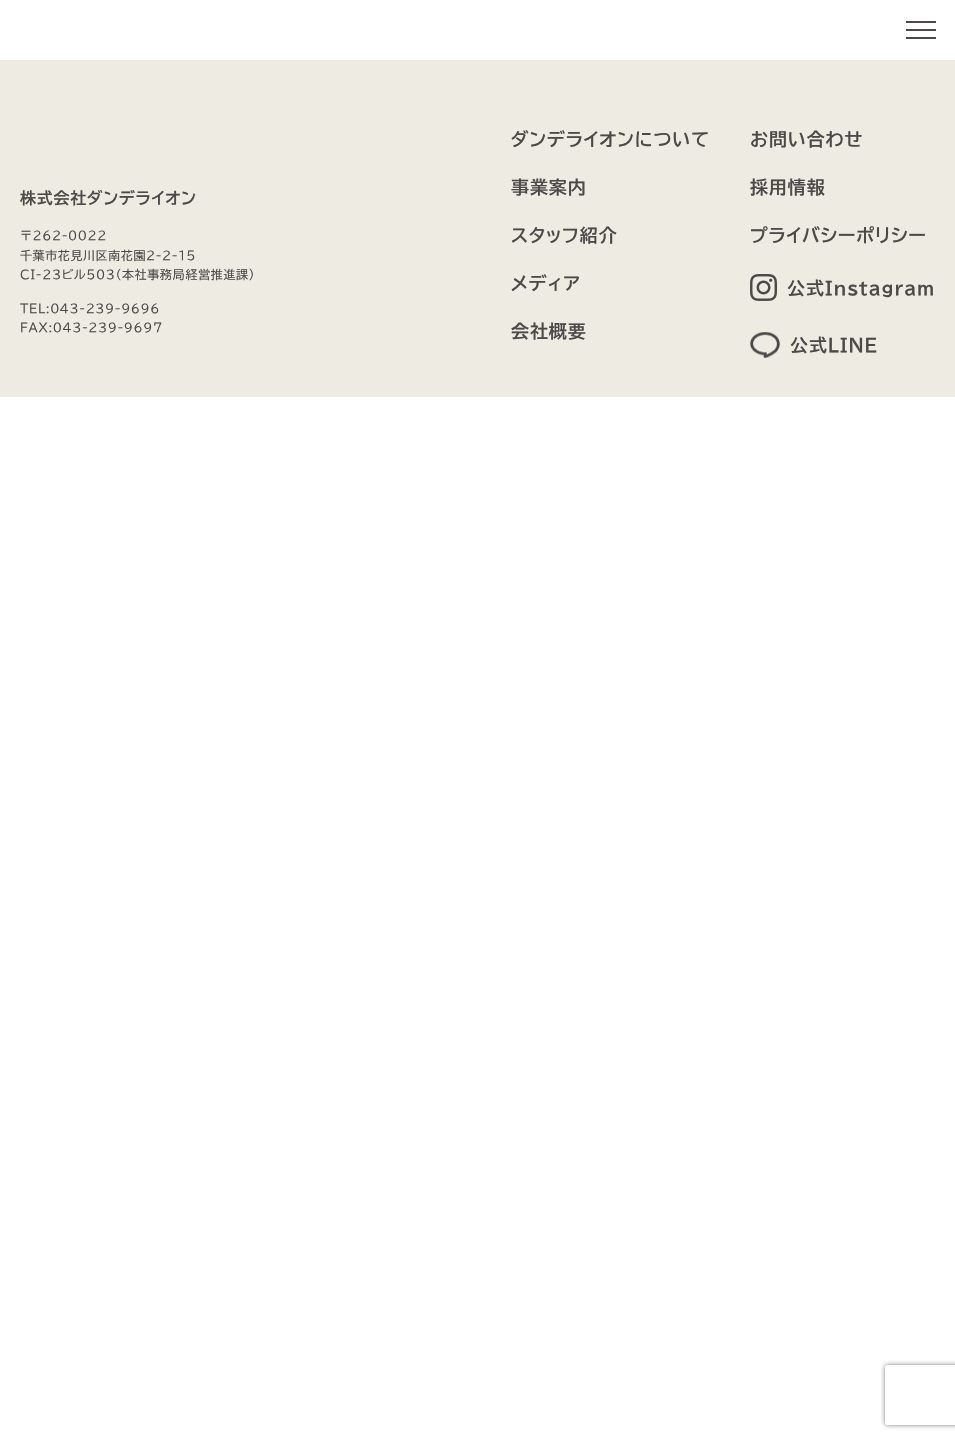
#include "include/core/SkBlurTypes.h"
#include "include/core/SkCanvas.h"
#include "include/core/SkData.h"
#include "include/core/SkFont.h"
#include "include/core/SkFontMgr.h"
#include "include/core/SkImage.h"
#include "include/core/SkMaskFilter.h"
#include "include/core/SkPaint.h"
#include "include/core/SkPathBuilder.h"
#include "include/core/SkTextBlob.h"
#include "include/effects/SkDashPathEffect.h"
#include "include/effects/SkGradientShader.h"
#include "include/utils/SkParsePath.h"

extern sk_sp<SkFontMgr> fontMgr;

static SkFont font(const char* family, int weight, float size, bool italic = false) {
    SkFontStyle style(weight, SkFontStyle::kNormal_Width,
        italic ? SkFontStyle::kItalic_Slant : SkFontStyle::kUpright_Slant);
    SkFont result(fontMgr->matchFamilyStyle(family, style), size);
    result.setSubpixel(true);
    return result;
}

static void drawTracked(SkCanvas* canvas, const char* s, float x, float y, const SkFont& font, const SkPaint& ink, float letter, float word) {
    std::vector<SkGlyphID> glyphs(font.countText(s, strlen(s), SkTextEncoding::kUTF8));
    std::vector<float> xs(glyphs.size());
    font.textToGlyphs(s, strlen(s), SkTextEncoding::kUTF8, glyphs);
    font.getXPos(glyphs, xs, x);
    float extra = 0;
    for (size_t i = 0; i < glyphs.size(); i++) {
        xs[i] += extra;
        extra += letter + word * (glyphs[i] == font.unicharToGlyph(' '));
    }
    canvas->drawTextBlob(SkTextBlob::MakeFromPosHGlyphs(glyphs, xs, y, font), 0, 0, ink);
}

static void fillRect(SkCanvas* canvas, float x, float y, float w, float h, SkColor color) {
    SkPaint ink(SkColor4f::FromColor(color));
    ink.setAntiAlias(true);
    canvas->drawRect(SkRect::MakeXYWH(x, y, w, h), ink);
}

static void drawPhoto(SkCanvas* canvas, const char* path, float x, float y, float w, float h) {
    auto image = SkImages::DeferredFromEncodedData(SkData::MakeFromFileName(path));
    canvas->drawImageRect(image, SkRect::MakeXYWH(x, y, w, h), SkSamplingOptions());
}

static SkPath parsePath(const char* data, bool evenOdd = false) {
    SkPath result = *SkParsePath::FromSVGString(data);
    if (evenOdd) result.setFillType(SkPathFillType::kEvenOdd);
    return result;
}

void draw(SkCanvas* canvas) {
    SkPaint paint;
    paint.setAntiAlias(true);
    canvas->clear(0xFFFFFFFF);
    fillRect(canvas, 906, 29, 30, 2, 0xFF4C4948);
    fillRect(canvas, 906, 21, 30, 2, 0xFF4C4948);
    fillRect(canvas, 906, 37, 30, 2, 0xFF4C4948);
    fillRect(canvas, 0, 60, 955, 337, 0xFFEEEBE3);
    SkFont font1 = font("BIZ UDPGothic", 700, 16);
    paint.setColor(0xFF4C4948);
    drawTracked(canvas, "株式会社ダンデライオン", 20, 204, font1, paint, 0.75f, 0);
    SkFont font2 = font("BIZ UDPGothic", 400, 12);
    drawTracked(canvas, "〒262-0022", 20, 240, font2, paint, 0.6f, 0);
    drawTracked(canvas, "千葉市花見川区南花園2-2-15", 20, 260, font2, paint, 0.6f, 0);
    drawTracked(canvas, "CI-23ビル503（本社事務局 経営推進課）", 20, 279, font2, paint, 0.6f, 0);
    drawTracked(canvas, "TEL:043-239-9696", 20, 313, font2, paint, 0.6f, 0);
    drawTracked(canvas, "FAX:043-239-9697", 20, 332, font2, paint, 0.6f, 0);
    SkFont font3 = font("BIZ UDPGothic", 700, 18);
    drawTracked(canvas, "ダンデライオンについて", 511, 146, font3, paint, 0.9f, 0);
    drawTracked(canvas, "事業案内", 511, 194, font3, paint, 0.9f, 0);
    drawTracked(canvas, "スタッフ紹介", 511, 242, font3, paint, 0.9f, 0);
    drawTracked(canvas, "メディア", 511, 290, font3, paint, 0.9f, 0);
    drawTracked(canvas, "会社概要", 511, 338, font3, paint, 0.9f, 0);
    drawTracked(canvas, "お問い合わせ", 750, 146, font3, paint, 0.9f, 0);
    drawTracked(canvas, "採用情報", 750, 194, font3, paint, 0.9f, 0);
    drawTracked(canvas, "プライバシーポリシー", 750, 242, font3, paint, 0.9f, 0);
    drawPhoto(canvas, "assets/img1.png", 750, 274, 27, 27);
    drawTracked(canvas, "公式Instagram", 787, 295, font3, paint, 0.9f, 0);
    drawPhoto(canvas, "assets/img2.png", 750, 332, 30, 26);
    drawTracked(canvas, "公式LINE", 790, 352, font3, paint, 0.9f, 0);
    canvas->save();
    canvas->clipPath(parsePath("M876 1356H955V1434H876ZM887 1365H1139C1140 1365 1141 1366 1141 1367V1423C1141 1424 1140 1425 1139 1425H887C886 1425 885 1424 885 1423V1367C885 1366 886 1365 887 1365Z", true), true);
    paint.setColor(0xFF808080);
    paint.setMaskFilter(SkMaskFilter::MakeBlur(kNormal_SkBlurStyle, 2.5f));
    canvas->drawRoundRect(SkRect::MakeXYWH(885, 1365, 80, 60), 2, 2, paint);
    paint.setMaskFilter(nullptr);
    canvas->restore();
}
